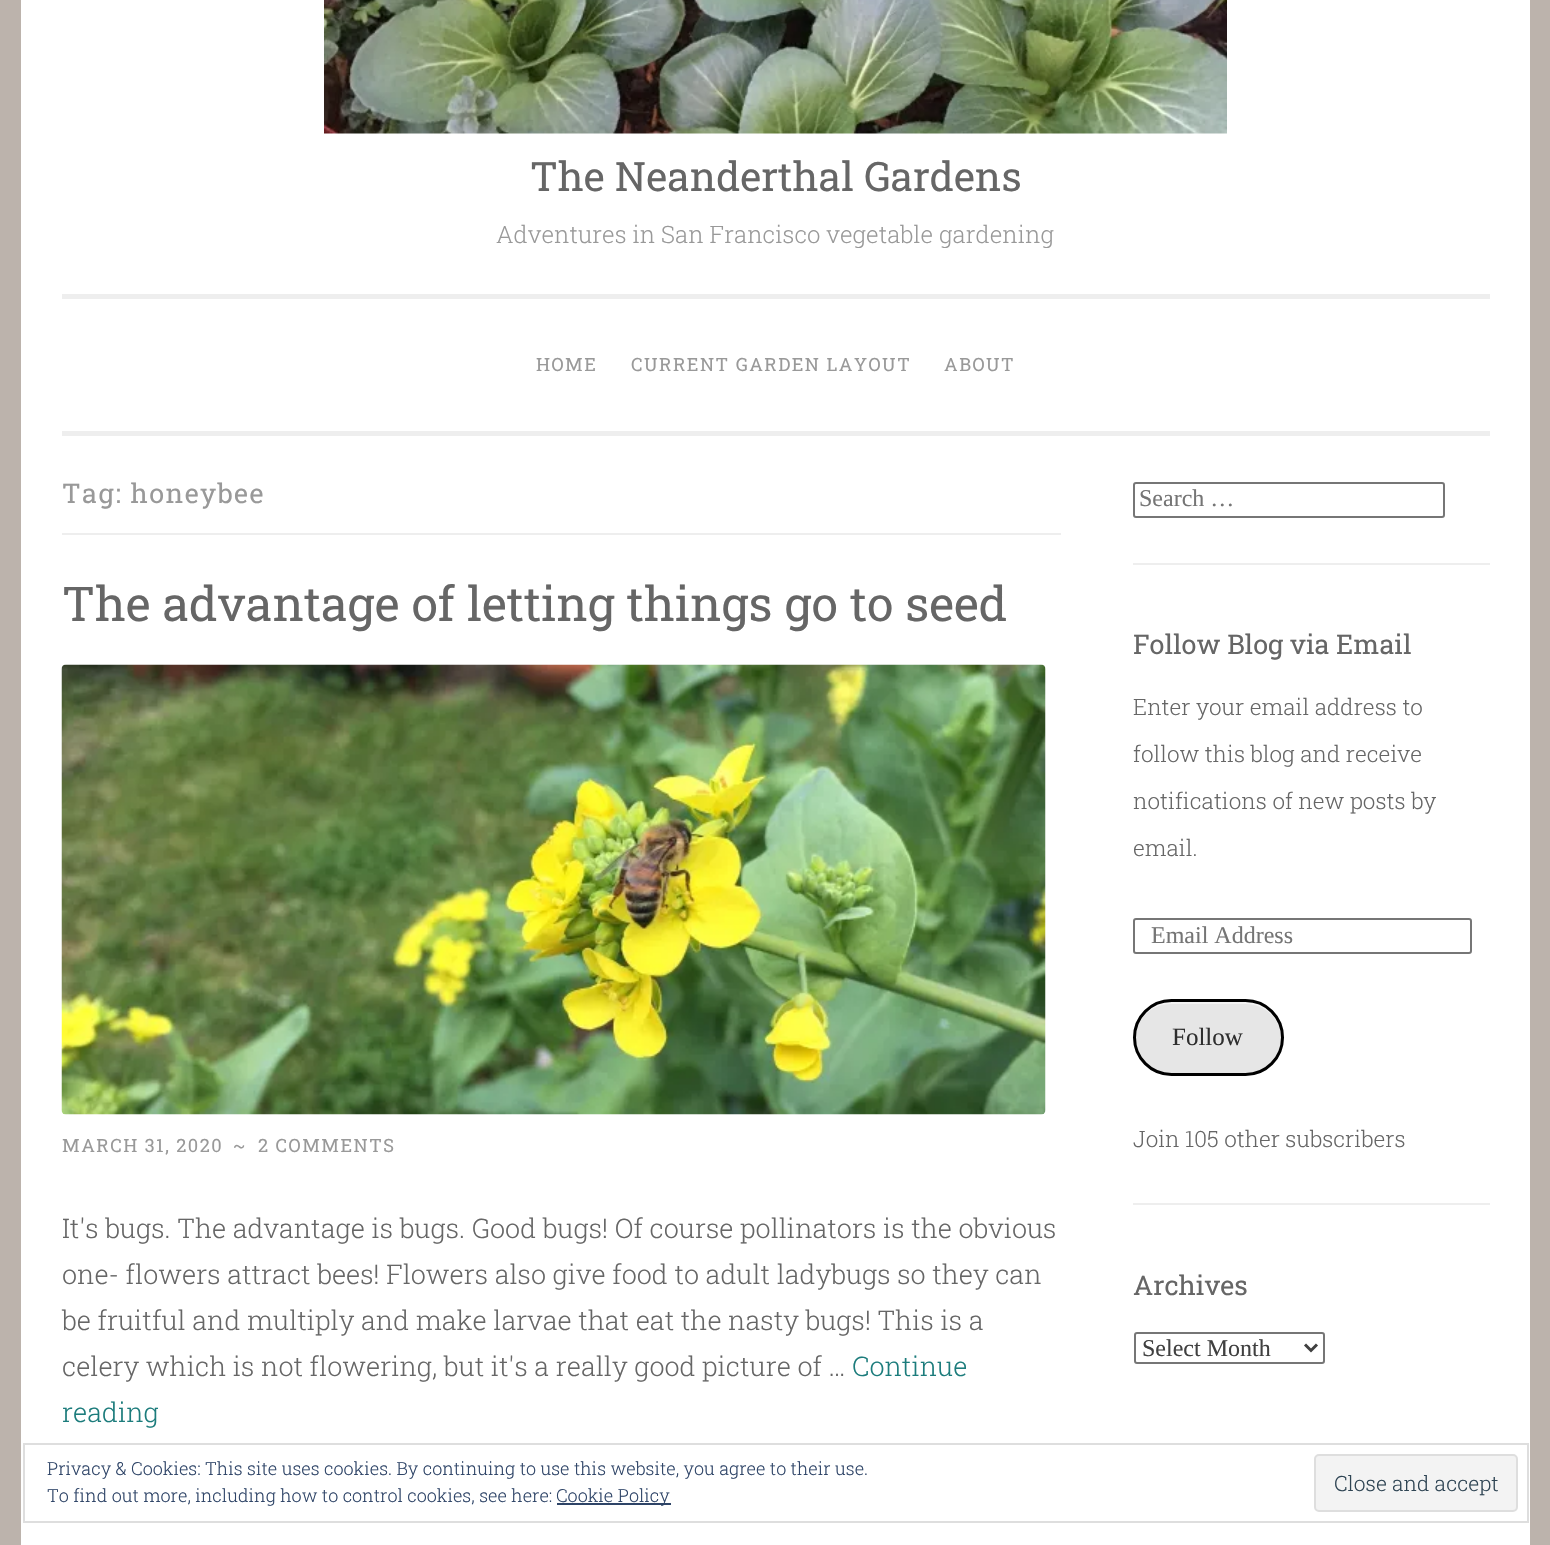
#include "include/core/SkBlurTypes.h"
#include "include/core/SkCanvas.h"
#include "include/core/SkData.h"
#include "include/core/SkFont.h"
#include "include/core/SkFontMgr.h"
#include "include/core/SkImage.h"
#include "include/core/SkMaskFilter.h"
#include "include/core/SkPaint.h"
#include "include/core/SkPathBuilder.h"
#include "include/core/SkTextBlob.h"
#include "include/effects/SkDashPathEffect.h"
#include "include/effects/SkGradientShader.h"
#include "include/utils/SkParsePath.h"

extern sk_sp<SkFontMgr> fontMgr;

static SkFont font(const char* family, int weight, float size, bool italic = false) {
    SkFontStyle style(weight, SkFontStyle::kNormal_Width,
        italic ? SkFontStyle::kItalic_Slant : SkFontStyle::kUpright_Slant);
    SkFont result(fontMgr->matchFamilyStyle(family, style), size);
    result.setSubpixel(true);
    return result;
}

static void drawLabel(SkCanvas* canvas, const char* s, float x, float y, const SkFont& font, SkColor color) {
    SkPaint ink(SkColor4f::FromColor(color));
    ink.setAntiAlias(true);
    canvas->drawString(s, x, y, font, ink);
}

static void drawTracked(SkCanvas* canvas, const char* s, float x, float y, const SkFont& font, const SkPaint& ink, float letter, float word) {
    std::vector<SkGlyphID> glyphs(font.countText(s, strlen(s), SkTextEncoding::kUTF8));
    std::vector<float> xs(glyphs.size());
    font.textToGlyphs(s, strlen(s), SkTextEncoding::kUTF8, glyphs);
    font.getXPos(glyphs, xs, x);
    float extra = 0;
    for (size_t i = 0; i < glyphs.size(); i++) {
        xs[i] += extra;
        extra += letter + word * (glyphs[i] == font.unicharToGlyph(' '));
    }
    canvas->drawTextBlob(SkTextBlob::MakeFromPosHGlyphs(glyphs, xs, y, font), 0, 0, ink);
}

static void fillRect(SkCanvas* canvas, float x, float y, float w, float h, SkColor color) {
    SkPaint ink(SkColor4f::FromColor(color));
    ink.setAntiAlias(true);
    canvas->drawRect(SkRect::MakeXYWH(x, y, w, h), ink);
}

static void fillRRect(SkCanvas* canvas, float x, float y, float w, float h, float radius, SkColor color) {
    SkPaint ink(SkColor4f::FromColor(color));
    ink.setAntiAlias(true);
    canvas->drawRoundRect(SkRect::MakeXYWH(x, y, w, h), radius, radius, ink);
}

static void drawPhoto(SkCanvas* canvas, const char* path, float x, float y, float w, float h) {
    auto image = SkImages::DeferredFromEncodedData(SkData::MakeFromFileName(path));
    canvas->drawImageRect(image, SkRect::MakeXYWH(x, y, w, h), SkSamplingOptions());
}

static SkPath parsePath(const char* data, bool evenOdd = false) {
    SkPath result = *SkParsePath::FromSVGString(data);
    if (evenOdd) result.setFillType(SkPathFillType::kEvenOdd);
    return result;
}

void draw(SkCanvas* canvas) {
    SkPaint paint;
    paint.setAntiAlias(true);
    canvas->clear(0xFFBCB3AC);
    fillRect(canvas, 21, 0, 1509, 1545, 0xFFFFFFFF);
    fillRect(canvas, 62, 431, 1428, 5, 0xFFEEEEEE);
    drawPhoto(canvas, "assets/img1.png", 324, 0, 903, 134);
    SkFont font1 = font("Roboto Slab", 400, 40.5f);
    drawLabel(canvas, "The Neanderthal Gardens", 530, 191, font1, 0xFF666666);
    SkFont font2 = font("Roboto Slab", 300, 24);
    drawLabel(canvas, "Adventures in San Francisco vegetable gardening", 496, 243, font2, 0xFF999999);
    fillRect(canvas, 62, 294, 1428, 5, 0xFFEEEEEE);
    SkFont font3 = font("Roboto Slab", 400, 18.25f);
    paint.setColor(0xFF999999);
    drawTracked(canvas, "HOME", 536, 371, font3, paint, 1.5f, 0);
    drawTracked(canvas, "CURRENT GARDEN LAYOUT", 631, 371, font3, paint, 1.5f, 0);
    drawTracked(canvas, "ABOUT", 944, 371, font3, paint, 1.5f, 0);
    fillRect(canvas, 62, 533, 999, 2, 0xFFEEEEEE);
    SkFont font4 = font("Roboto Slab", 400, 27);
    drawTracked(canvas, "Tag: honeybee", 62, 503, font4, paint, 1.5f, 0);
    SkFont font5 = font("Roboto Slab", 400, 48);
    drawLabel(canvas, "The advantage of letting things go to seed", 62, 621, font5, 0xFF666666);
    drawPhoto(canvas, "assets/img2.png", 61, 664, 985, 451);
    drawTracked(canvas, "MARCH 31, 2020", 62, 1152, font3, paint, 1.5f, 0);
    drawTracked(canvas, "~", 233, 1152, font3, paint, 1.5f, 0);
    drawTracked(canvas, "2 COMMENTS", 258, 1152, font3, paint, 1.5f, 0);
    SkFont font6 = font("Roboto Slab", 300, 27);
    drawLabel(canvas, "It's bugs. The advantage is bugs. Good bugs! Of course pollinators is the obvious", 62, 1238, font6, 0xFF666666);
    drawLabel(canvas, "one- flowers attract bees! Flowers also give food to adult ladybugs so they can", 62, 1284, font6, 0xFF666666);
    drawLabel(canvas, "be fruitful and multiply and make larvae that eat the nasty bugs! This is a", 62, 1330, font6, 0xFF666666);
    drawLabel(canvas, "celery which is not flowering, but it's a really good picture of …", 62, 1376, font6, 0xFF666666);
    drawLabel(canvas, "Continue", 852, 1376, font6, 0xFF1C7C7C);
    drawLabel(canvas, "reading", 62, 1422, font6, 0xFF1C7C7C);
    fillRect(canvas, 1133, 563, 357, 2, 0xFFEEEEEE);
    paint.setStroke(true);
    paint.setStrokeWidth(2);
    paint.setColor(0xFF767676);
    canvas->drawRoundRect(SkRect::MakeXYWH(1134, 483, 310, 34), 2, 2, paint);
    SkFont font7 = font("Liberation Serif", 400, 24);
    drawLabel(canvas, "Search …", 1139, 506, font7, 0xFF757575);
    fillRect(canvas, 1133, 1203, 357, 2, 0xFFEEEEEE);
    drawLabel(canvas, "Follow Blog via Email", 1133, 654, font4, 0xFF666666);
    SkFont font8 = font("Roboto Slab", 300, 22.5f);
    drawLabel(canvas, "Enter your email address to", 1133, 715, font8, 0xFF666666);
    drawLabel(canvas, "follow this blog and receive", 1133, 762, font8, 0xFF666666);
    drawLabel(canvas, "notifications of new posts by", 1133, 809, font8, 0xFF666666);
    drawLabel(canvas, "email.", 1133, 856, font8, 0xFF666666);
    canvas->drawRoundRect(SkRect::MakeXYWH(1134, 919, 337, 34), 2, 2, paint);
    drawLabel(canvas, "Email Address", 1151, 943, font7, 0xFF757575);
    fillRRect(canvas, 1133, 999, 151, 77, 38.5f, 0xFFE6E6E6);
    paint.setStroke(false);
    paint.setColor(0xFFF3F3F3);
    canvas->drawPath(parsePath("M1171 1004H1246C1265 1004 1281 1019 1281 1038C1281 1018 1265 1002 1246 1002H1172C1152 1002 1136 1018 1136 1038C1136 1019 1151 1004 1171 1004Z"), paint);
    paint.setStroke(true);
    paint.setStrokeWidth(3);
    paint.setColor(0xFF000000);
    canvas->drawRoundRect(SkRect::MakeXYWH(1134.5f, 1000.5f, 148, 74), 37, 37, paint);
    SkFont font9 = font("Liberation Serif", 400, 25);
    drawLabel(canvas, "Follow", 1172, 1045, font9, 0xFF2E2E2E);
    drawLabel(canvas, "Join 105 other subscribers", 1133, 1147, font8, 0xFF666666);
    drawLabel(canvas, "Archives", 1133, 1295, font4, 0xFF666666);
    paint.setStrokeWidth(2);
    paint.setColor(0xFF767676);
    canvas->drawRoundRect(SkRect::MakeXYWH(1135, 1333, 189, 30), 2, 2, paint);
    paint.setStrokeWidth(3);
    paint.setColor(0xFF404040);
    canvas->drawPath(parsePath("M1305 1344.5L1311 1350.5L1317 1344.5"), paint);
    drawLabel(canvas, "Select Month", 1142, 1356, font7, 0xFF404040);
    paint.setStrokeWidth(2);
    paint.setColor(0xFFDEDEDE);
    canvas->drawRect(SkRect::MakeXYWH(24, 1444, 1504, 78), paint);
    SkFont font10 = font("Roboto Slab", 300, 18);
    drawLabel(canvas, "Privacy & Cookies: This site uses cookies. By continuing to use this website, you agree to their use.", 47, 1475, font10, 0xFF2E4467);
    drawLabel(canvas, "To find out more, including how to control cookies, see here:", 47, 1502, font10, 0xFF2E4467);
    fillRect(canvas, 557, 1503, 114, 2, 0xFF2E4467);
    drawLabel(canvas, "Cookie Policy", 556, 1502, font10, 0xFF2E4467);
    paint.setStroke(false);
    paint.setColor(0xFFF3F3F3);
    canvas->drawRoundRect(SkRect::MakeXYWH(1315, 1455, 202, 56), 4, 4, paint);
    paint.setStroke(true);
    paint.setColor(0xFFDEDEDE);
    canvas->drawRoundRect(SkRect::MakeXYWH(1315, 1455, 202, 56), 4, 4, paint);
    SkFont font11 = font("Roboto Slab", 300, 21);
    drawLabel(canvas, "Close and accept", 1334, 1491, font11, 0xFF2E4453);
}
